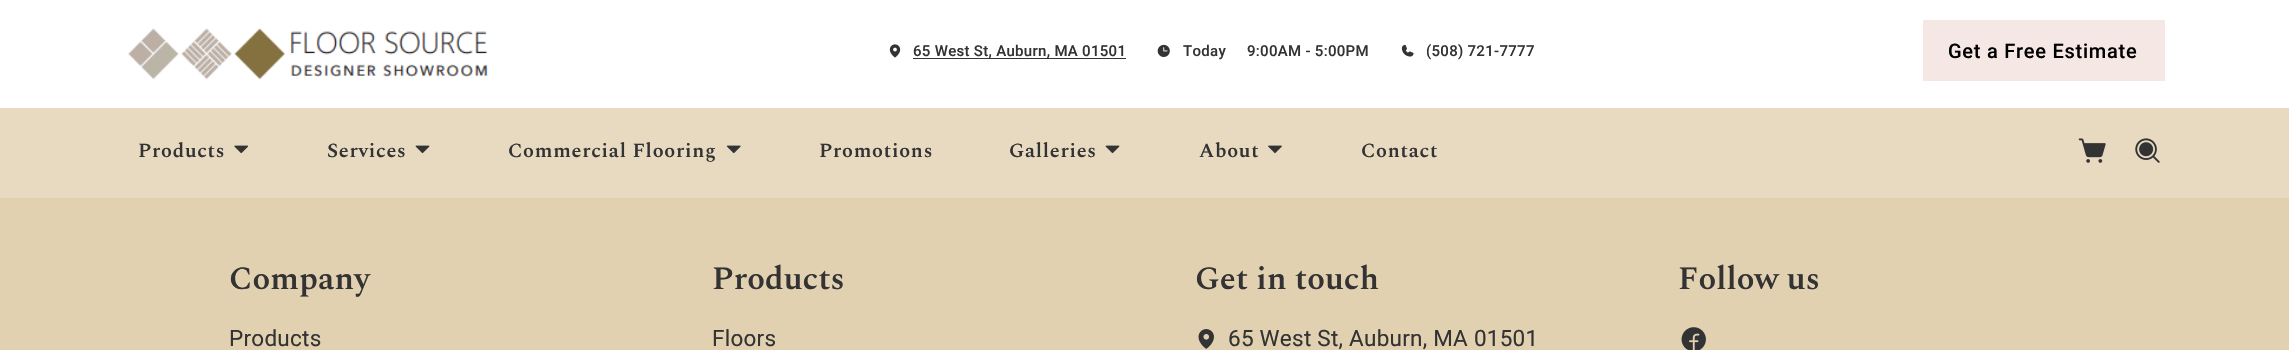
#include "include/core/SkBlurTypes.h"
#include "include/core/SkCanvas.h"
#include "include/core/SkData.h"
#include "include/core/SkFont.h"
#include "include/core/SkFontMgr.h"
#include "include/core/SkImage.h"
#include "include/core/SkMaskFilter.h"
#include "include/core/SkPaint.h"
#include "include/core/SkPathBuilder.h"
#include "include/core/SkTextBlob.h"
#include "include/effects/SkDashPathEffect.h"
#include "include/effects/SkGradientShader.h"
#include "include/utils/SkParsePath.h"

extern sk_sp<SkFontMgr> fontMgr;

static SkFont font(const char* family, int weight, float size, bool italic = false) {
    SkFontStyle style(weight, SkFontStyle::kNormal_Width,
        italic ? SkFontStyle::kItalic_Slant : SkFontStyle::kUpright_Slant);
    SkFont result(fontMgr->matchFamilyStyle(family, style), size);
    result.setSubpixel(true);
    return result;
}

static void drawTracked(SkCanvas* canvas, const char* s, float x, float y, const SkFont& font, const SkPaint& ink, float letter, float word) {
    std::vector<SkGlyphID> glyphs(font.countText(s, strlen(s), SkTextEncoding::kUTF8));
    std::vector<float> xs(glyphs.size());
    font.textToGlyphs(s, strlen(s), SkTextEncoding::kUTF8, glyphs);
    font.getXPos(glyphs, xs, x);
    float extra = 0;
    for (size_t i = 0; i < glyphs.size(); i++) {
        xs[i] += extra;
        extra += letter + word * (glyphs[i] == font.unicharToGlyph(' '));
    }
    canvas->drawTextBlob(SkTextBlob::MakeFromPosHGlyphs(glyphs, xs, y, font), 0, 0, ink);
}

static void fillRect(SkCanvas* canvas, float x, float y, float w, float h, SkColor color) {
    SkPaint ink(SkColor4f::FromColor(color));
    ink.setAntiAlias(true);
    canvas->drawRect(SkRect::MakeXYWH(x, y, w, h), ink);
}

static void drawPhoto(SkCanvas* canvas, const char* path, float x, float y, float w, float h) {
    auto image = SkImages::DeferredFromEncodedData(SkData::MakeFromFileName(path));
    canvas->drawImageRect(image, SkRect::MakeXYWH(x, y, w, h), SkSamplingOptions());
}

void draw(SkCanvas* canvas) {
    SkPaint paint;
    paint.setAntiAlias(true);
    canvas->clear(0xFFFFFFFF);
    drawPhoto(canvas, "assets/img1.png", 128, 28, 360, 52);
    drawPhoto(canvas, "assets/img2.png", 889, 44, 12, 14);
    fillRect(canvas, 913, 58, 213, 1, 0xFF333333);
    SkFont font1 = font("Roboto", 500, 15);
    paint.setColor(0xFF333333);
    drawTracked(canvas, "65 West St, Auburn, MA 01501", 913, 56, font1, paint, 0.3f, 0);
    drawPhoto(canvas, "assets/img3.png", 1157, 44, 13, 13);
    drawTracked(canvas, "Today", 1183, 56, font1, paint, 0.3f, 0);
    drawTracked(canvas, "9:00AM - 5:00PM", 1247, 56, font1, paint, 0.3f, 0);
    drawPhoto(canvas, "assets/img4.png", 1401, 44, 13, 13);
    drawTracked(canvas, "(508) 721-7777", 1426, 56, font1, paint, 0.3f, 0);
    fillRect(canvas, 1923, 20, 242, 61, 0xFFF5E7E3);
    SkFont font2 = font("Roboto", 500, 20);
    paint.setColor(0xFF000000);
    drawTracked(canvas, "Get a Free Estimate", 1948, 58, font2, paint, 0.75f, 0);
    fillRect(canvas, 0, 108, 2289, 90, 0xFFE7DAC0);
    SkFont font3 = font("Spectral", 600, 20);
    paint.setColor(0xFF333333);
    drawTracked(canvas, "Products", 138, 157, font3, paint, 0.75f, 0);
    drawPhoto(canvas, "assets/img5.png", 234, 145, 15, 9);
    drawTracked(canvas, "Services", 327, 157, font3, paint, 0.75f, 0);
    drawPhoto(canvas, "assets/img6.png", 415, 145, 15, 9);
    drawTracked(canvas, "Commercial Flooring", 508, 157, font3, paint, 0.75f, 0);
    drawPhoto(canvas, "assets/img7.png", 726, 145, 15, 9);
    drawTracked(canvas, "Promotions", 819, 157, font3, paint, 0.75f, 0);
    drawTracked(canvas, "Galleries", 1009, 157, font3, paint, 0.75f, 0);
    drawPhoto(canvas, "assets/img6.png", 1105, 145, 15, 9);
    drawTracked(canvas, "About", 1199, 157, font3, paint, 0.75f, 0);
    drawPhoto(canvas, "assets/img8.png", 1268, 145, 14, 9);
    drawTracked(canvas, "Contact", 1361, 157, font3, paint, 0.75f, 0);
    drawPhoto(canvas, "assets/img9.png", 2078, 138, 28, 25);
    drawPhoto(canvas, "assets/img10.png", 2135, 138, 25, 25);
    fillRect(canvas, 0, 198, 2289, 152, 0xFFE1D1B1);
    SkFont font4 = font("Spectral", 600, 32.5f);
    drawTracked(canvas, "Company", 229, 289, font4, paint, 0.1f, 0);
    SkFont font5 = font("Roboto", 400, 22.5f);
    drawTracked(canvas, "Products", 229, 346, font5, paint, 0.25f, 0);
    drawTracked(canvas, "Products", 712, 289, font4, paint, 0.1f, 0);
    drawTracked(canvas, "Floors", 712, 346, font5, paint, 0.25f, 0);
    drawTracked(canvas, "Get in touch", 1195, 289, font4, paint, 0.1f, 0);
    drawPhoto(canvas, "assets/img11.png", 1198, 329, 16, 20);
    drawTracked(canvas, "65 West St, Auburn, MA 01501", 1228, 346, font5, paint, 0.25f, 0);
    drawTracked(canvas, "Follow us", 1678, 289, font4, paint, 0.1f, 0);
    drawPhoto(canvas, "assets/img12.png", 1681, 327, 25, 23);
}
